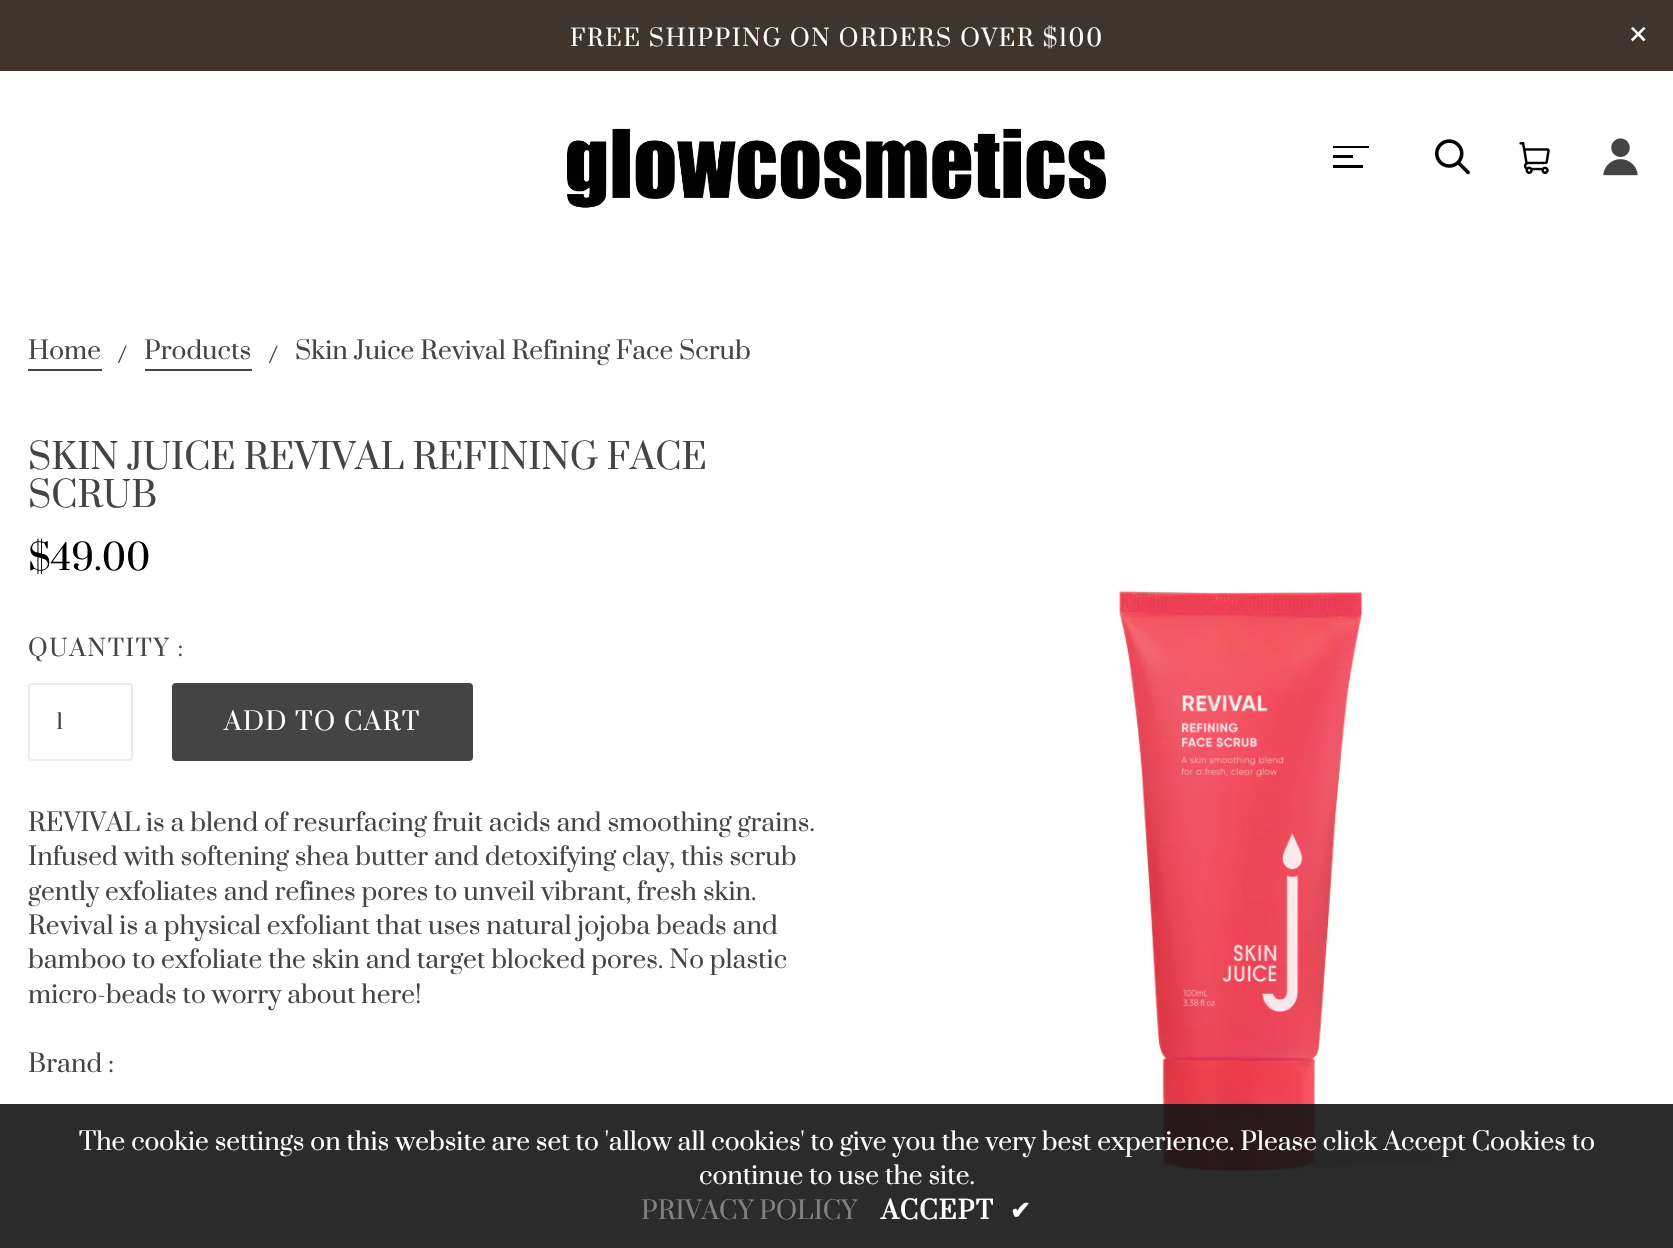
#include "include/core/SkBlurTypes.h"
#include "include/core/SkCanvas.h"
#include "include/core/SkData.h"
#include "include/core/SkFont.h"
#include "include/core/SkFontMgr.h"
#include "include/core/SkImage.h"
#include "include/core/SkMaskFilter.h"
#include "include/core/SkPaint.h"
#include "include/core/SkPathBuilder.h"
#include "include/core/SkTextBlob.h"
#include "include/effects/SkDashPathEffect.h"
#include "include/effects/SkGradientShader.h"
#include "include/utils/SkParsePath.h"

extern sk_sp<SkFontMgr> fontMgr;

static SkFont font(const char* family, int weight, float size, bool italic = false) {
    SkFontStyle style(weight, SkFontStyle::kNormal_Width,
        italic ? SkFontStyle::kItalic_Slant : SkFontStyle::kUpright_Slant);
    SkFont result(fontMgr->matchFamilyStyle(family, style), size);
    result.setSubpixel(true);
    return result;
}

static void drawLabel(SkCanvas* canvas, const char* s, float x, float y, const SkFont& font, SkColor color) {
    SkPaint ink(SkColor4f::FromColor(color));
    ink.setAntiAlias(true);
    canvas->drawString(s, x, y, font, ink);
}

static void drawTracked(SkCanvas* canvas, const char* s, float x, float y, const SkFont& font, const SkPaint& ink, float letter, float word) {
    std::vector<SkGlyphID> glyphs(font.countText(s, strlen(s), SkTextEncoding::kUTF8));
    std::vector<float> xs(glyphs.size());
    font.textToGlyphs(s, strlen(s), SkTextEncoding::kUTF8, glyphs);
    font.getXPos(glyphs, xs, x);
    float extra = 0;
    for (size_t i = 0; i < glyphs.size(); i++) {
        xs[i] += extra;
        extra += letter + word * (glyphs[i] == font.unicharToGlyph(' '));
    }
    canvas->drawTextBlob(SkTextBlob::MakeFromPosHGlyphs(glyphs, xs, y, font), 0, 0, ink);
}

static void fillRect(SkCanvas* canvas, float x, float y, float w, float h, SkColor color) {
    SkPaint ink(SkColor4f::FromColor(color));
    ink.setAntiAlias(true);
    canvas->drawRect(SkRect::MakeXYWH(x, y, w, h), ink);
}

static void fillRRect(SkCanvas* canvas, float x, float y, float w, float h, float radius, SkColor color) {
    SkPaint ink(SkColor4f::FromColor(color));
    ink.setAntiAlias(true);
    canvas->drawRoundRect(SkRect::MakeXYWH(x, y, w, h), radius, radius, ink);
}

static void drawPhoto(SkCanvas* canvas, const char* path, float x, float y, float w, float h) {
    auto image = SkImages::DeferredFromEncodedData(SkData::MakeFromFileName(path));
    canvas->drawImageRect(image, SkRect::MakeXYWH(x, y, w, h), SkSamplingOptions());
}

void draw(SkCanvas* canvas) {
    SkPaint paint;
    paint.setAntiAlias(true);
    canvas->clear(0xFFFFFFFF);
    fillRect(canvas, 0, 0, 1673, 71, 0xFF3F352C);
    SkFont font1 = font("Prata", 400, 22.75f);
    paint.setColor(0xFFFFFFFF);
    drawTracked(canvas, "FREE SHIPPING ON ORDERS OVER $100", 570, 46, font1, paint, 1.75f, 0);
    SkFont font2 = font("DejaVu Sans", 400, 24.5f);
    drawLabel(canvas, "✕", 1628, 43, font2, 0xFFFFFFFF);
    drawPhoto(canvas, "assets/img1.png", 567, 128, 539, 80);
    fillRect(canvas, 1333, 146, 36, 2, 0xFF000000);
    fillRect(canvas, 1333, 155, 20, 3, 0xFF000000);
    fillRect(canvas, 1333, 165, 30, 3, 0xFF000000);
    drawPhoto(canvas, "assets/img2.png", 1435, 139, 35, 36);
    drawPhoto(canvas, "assets/img3.png", 1519, 142, 31, 32);
    drawPhoto(canvas, "assets/img4.png", 1603, 138, 35, 38);
    SkFont font3 = font("Prata", 400, 24.5f);
    drawLabel(canvas, "Home", 28, 359, font3, 0xFF444444);
    fillRect(canvas, 28, 369, 74, 2, 0xFF444444);
    drawLabel(canvas, "/", 117, 363, font3, 0xFF444444);
    drawLabel(canvas, "Products", 144, 359, font3, 0xFF444444);
    fillRect(canvas, 145, 369, 107, 2, 0xFF444444);
    drawLabel(canvas, "/", 268, 363, font3, 0xFF444444);
    drawLabel(canvas, "Skin Juice Revival Refining Face Scrub", 295, 359, font3, 0xFF444444);
    SkFont font4 = font("Prata", 400, 35);
    drawLabel(canvas, "SKIN JUICE REVIVAL REFINING FACE", 28, 469, font4, 0xFF444444);
    drawLabel(canvas, "SCRUB", 28, 507, font4, 0xFF444444);
    drawLabel(canvas, "$49.00", 28, 570, font4, 0xFF000000);
    paint.setColor(0xFF444444);
    drawTracked(canvas, "QUANTITY :", 28, 656, font1, paint, 1.75f, 0);
    paint.setStroke(true);
    paint.setStrokeWidth(2);
    paint.setColor(0xFFEBEBEB);
    canvas->drawRoundRect(SkRect::MakeXYWH(29, 684, 103, 76), 3, 3, paint);
    SkFont font5 = font("Prata", 400, 21);
    drawLabel(canvas, "1", 56, 729, font5, 0xFF444444);
    fillRRect(canvas, 172, 683, 301, 78, 4, 0xFF444444);
    paint.setStroke(false);
    paint.setColor(0xFFFFFFFF);
    drawTracked(canvas, "ADD TO CART", 224, 730, font3, paint, 1.5f, 0);
    drawLabel(canvas, "REVIVAL is a blend of resurfacing fruit acids and smoothing grains.", 28, 831, font3, 0xFF444444);
    drawLabel(canvas, "Infused with softening shea butter and detoxifying clay, this scrub", 28, 865, font3, 0xFF444444);
    drawLabel(canvas, "gently exfoliates and refines pores to unveil vibrant, fresh skin.", 28, 900, font3, 0xFF444444);
    drawLabel(canvas, "Revival is a physical exfoliant that uses natural jojoba beads and", 28, 934, font3, 0xFF444444);
    drawLabel(canvas, "bamboo to exfoliate the skin and target blocked pores. No plastic", 28, 968, font3, 0xFF444444);
    drawLabel(canvas, "micro-beads to worry about here!", 28, 1003, font3, 0xFF444444);
    drawLabel(canvas, "Brand :", 28, 1072, font3, 0xFF444444);
    drawPhoto(canvas, "assets/img5.png", 1114, 586, 456, 587);
    fillRect(canvas, 0, 1104, 1673, 144, 0xE6141414);
    drawLabel(canvas, "The cookie settings on this website are set to 'allow all cookies' to give you the very best experience. Please click Accept Cookies to", 79, 1150, font3, 0xFFFFFFFF);
    drawLabel(canvas, "continue to use the site.", 699, 1184, font3, 0xFFFFFFFF);
    drawLabel(canvas, "PRIVACY POLICY", 641, 1219, font3, 0xFF818181);
    SkFont font6 = font("Prata", 700, 24.5f);
    drawTracked(canvas, "ACCEPT", 881, 1219, font6, paint, 1.25f, 0);
    SkFont font7 = font("DejaVu Sans", 700, 24.5f);
    drawTracked(canvas, "✔", 1010, 1219, font7, paint, 1.25f, 0);
}
